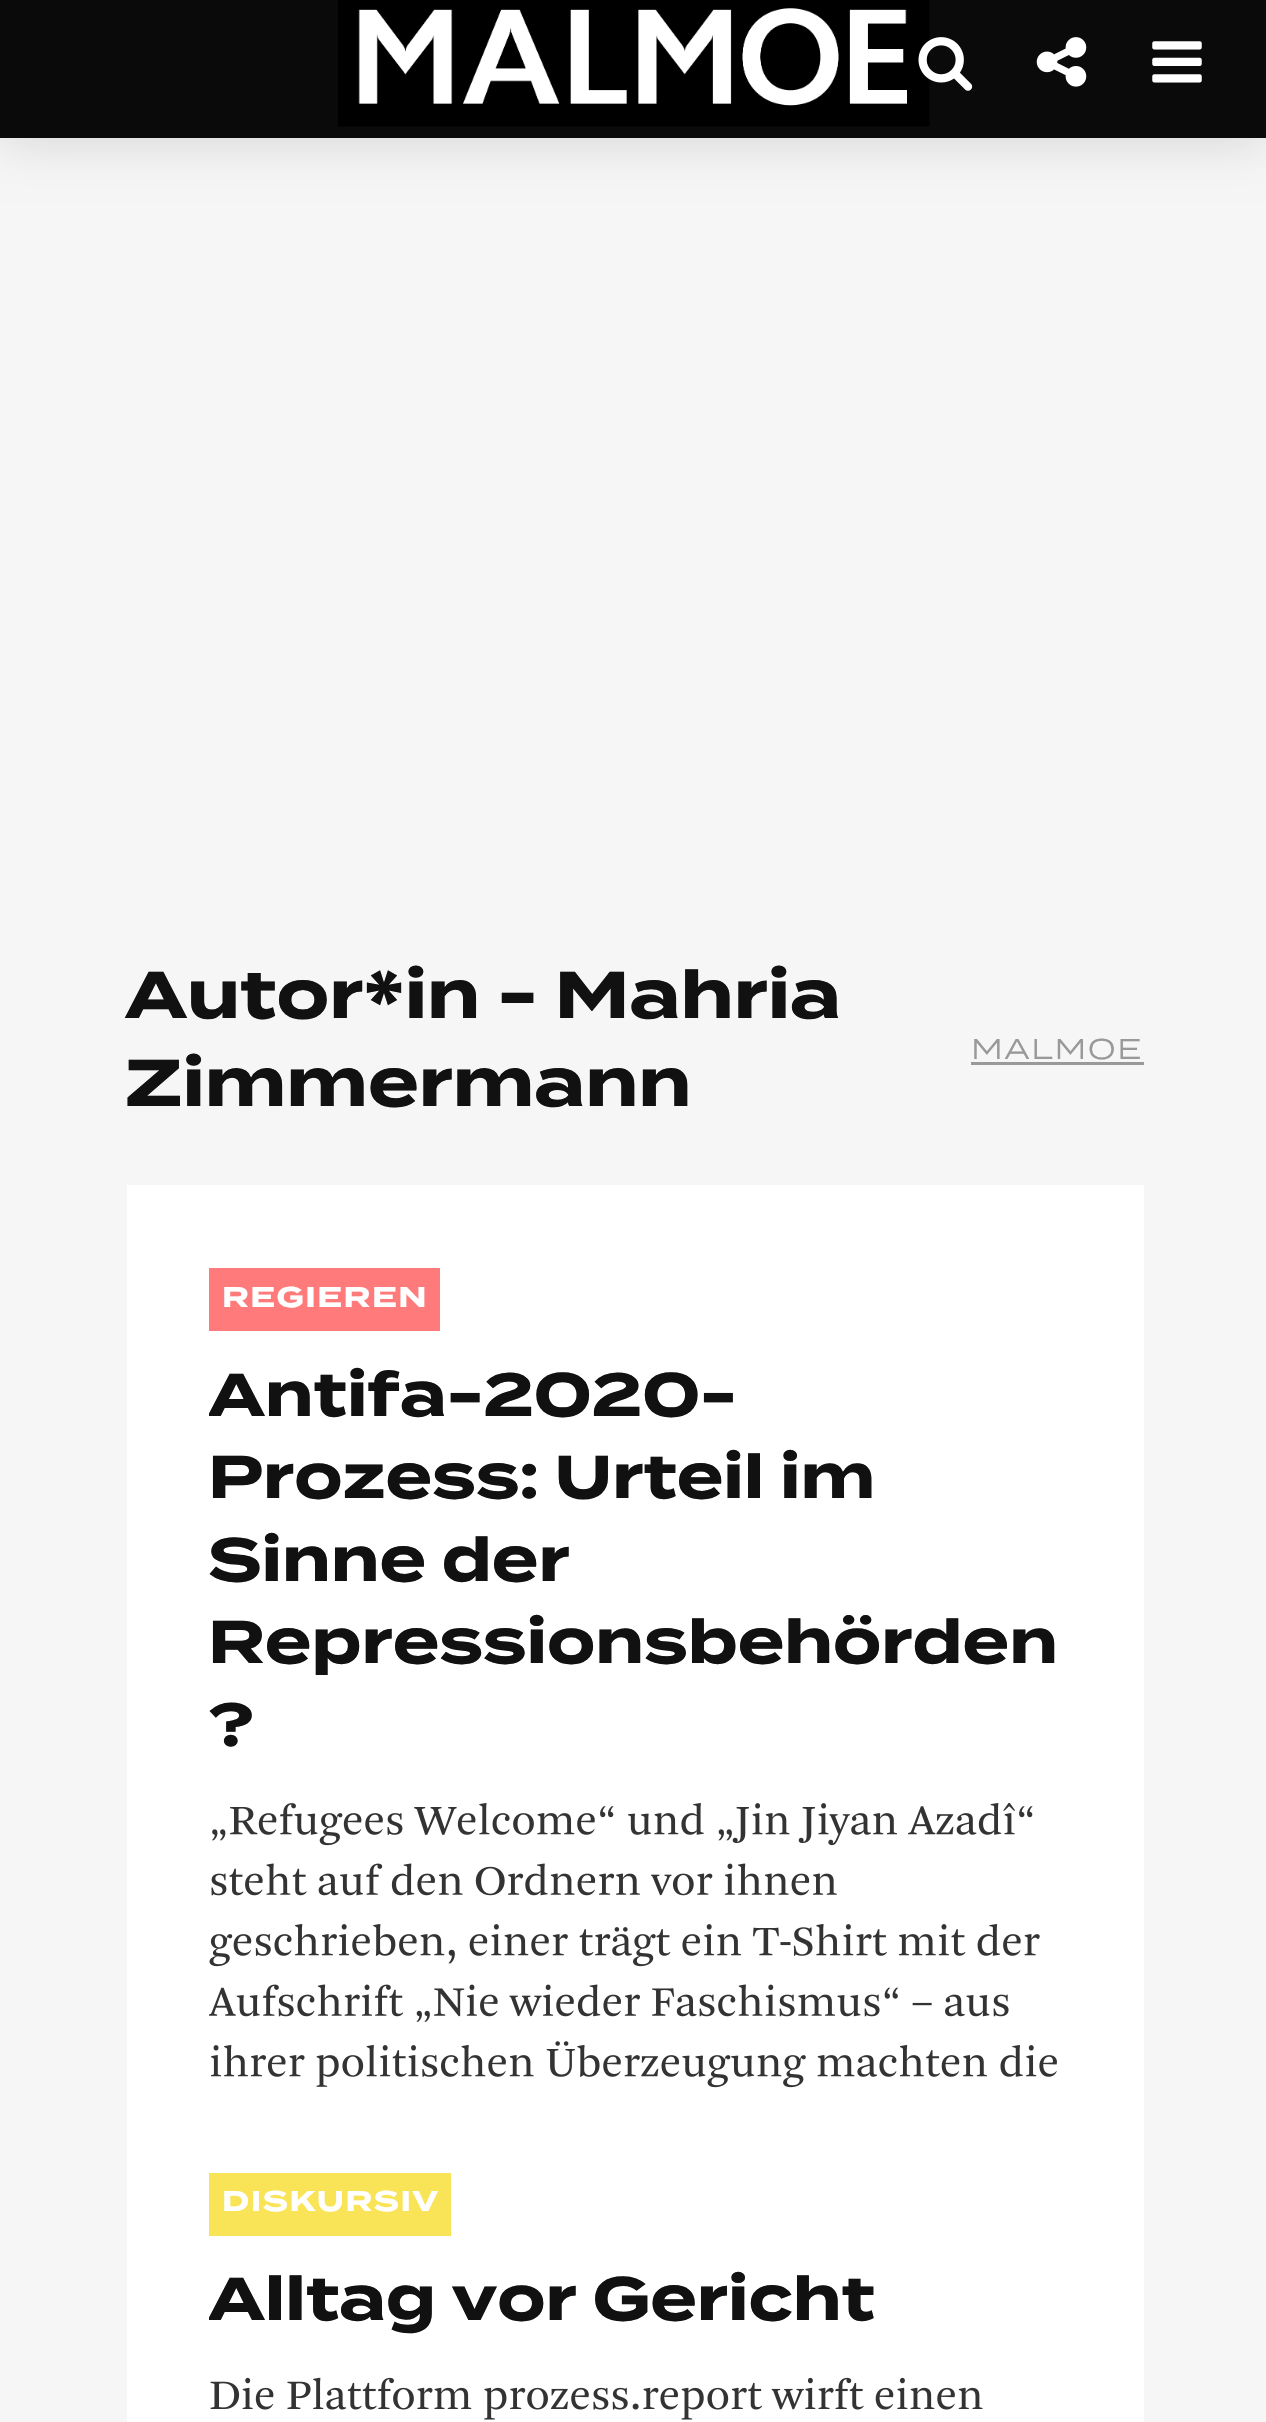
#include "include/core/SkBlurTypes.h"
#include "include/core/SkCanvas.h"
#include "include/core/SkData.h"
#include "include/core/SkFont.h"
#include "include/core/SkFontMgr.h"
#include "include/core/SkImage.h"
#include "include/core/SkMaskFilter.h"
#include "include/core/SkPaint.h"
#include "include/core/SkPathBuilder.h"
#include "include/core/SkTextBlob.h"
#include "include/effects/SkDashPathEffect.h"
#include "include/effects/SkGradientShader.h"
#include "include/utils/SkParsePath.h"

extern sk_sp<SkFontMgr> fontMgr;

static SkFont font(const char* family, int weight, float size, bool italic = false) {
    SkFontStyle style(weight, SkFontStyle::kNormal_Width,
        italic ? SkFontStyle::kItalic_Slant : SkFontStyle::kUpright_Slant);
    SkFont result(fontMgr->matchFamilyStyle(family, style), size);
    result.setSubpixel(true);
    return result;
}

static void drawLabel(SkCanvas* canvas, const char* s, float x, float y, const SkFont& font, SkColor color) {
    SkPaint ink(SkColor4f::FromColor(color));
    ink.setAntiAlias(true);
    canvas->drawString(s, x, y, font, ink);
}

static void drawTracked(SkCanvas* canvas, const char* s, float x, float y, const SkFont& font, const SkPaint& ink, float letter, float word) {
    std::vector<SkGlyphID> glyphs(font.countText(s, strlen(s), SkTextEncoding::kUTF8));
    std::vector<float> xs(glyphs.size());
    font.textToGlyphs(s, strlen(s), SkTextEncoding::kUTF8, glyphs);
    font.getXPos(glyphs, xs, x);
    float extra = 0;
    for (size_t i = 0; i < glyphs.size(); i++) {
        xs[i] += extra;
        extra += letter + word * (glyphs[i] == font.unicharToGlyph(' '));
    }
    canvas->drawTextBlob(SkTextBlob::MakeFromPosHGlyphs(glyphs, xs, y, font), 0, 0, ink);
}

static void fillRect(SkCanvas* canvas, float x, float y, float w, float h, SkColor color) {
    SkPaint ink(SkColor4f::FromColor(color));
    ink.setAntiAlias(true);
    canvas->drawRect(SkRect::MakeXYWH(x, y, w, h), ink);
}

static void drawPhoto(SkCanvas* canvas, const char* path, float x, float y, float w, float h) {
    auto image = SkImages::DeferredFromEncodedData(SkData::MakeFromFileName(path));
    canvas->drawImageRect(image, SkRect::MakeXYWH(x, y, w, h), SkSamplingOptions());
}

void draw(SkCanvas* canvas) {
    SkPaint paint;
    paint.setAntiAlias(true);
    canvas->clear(0xFFF6F6F6);
    paint.setColor(0x26000000);
    paint.setMaskFilter(SkMaskFilter::MakeBlur(kNormal_SkBlurStyle, 27.5f));
    canvas->drawRect(SkRect::MakeXYWH(0, 0, 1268, 138), paint);
    paint.setMaskFilter(nullptr);
    fillRect(canvas, 0, 0, 1266, 138, 0xFF0A0A0A);
    drawPhoto(canvas, "assets/img1.png", 338, 0, 592, 127);
    drawPhoto(canvas, "assets/img2.png", 918, 37, 55, 54);
    drawPhoto(canvas, "assets/img3.png", 1036, 37, 51, 50);
    drawPhoto(canvas, "assets/img4.png", 1152, 41, 50, 42);
    SkFont font1 = font("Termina", 400, 66);
    drawLabel(canvas, "Autor*in - Mahria", 125, 1018, font1, 0xFF111111);
    drawLabel(canvas, "Zimmermann", 125, 1106, font1, 0xFF111111);
    SkFont font2 = font("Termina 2", 400, 28.5f);
    paint.setColor(0xFF999999);
    drawTracked(canvas, "MALMOE", 971, 1059, font2, paint, 1.5f, 0);
    fillRect(canvas, 971, 1062, 173, 3, 0xFF999999);
    fillRect(canvas, 127, 1185, 1017, 1237, 0xFFFFFFFF);
    fillRect(canvas, 209, 1268, 231, 63, 0xFFFF7A7A);
    SkFont font3 = font("Termina", 400, 28.5f);
    paint.setColor(0xFFFFFFFF);
    drawTracked(canvas, "REGIEREN", 222, 1307, font3, paint, 1.5f, 0);
    canvas->save();
    canvas->clipRect(SkRect::MakeXYWH(209, 1268, 853, 888));
    SkFont font4 = font("Termina", 400, 60.5f);
    drawLabel(canvas, "Antifa-2020-", 208, 1416, font4, 0xFF111111);
    canvas->restore();
    drawLabel(canvas, "Prozess: Urteil im", 208, 1498, font4, 0xFF111111);
    drawLabel(canvas, "Sinne der", 208, 1581, font4, 0xFF111111);
    drawLabel(canvas, "Repressionsbehörden", 208, 1663, font4, 0xFF111111);
    drawLabel(canvas, "?", 208, 1746, font4, 0xFF111111);
    drawPhoto(canvas, "assets/img5.png", 211, 1802, 822, 44);
    drawPhoto(canvas, "assets/img6.png", 211, 1863, 626, 33);
    drawPhoto(canvas, "assets/img7.png", 209, 1924, 831, 43);
    drawPhoto(canvas, "assets/img8.png", 209, 1984, 800, 38);
    drawPhoto(canvas, "assets/img9.png", 210, 2041, 847, 47);
    fillRect(canvas, 209, 2173, 242, 63, 0xFFF9E457);
    drawTracked(canvas, "DISKURSIV", 222, 2211, font3, paint, 1.5f, 0);
    canvas->save();
    canvas->clipRect(SkRect::MakeXYWH(209, 2173, 853, 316));
    drawLabel(canvas, "Alltag vor Gericht", 208, 2320, font4, 0xFF111111);
    canvas->restore();
    drawPhoto(canvas, "assets/img10.png", 210, 2377, 773, 43);
}
